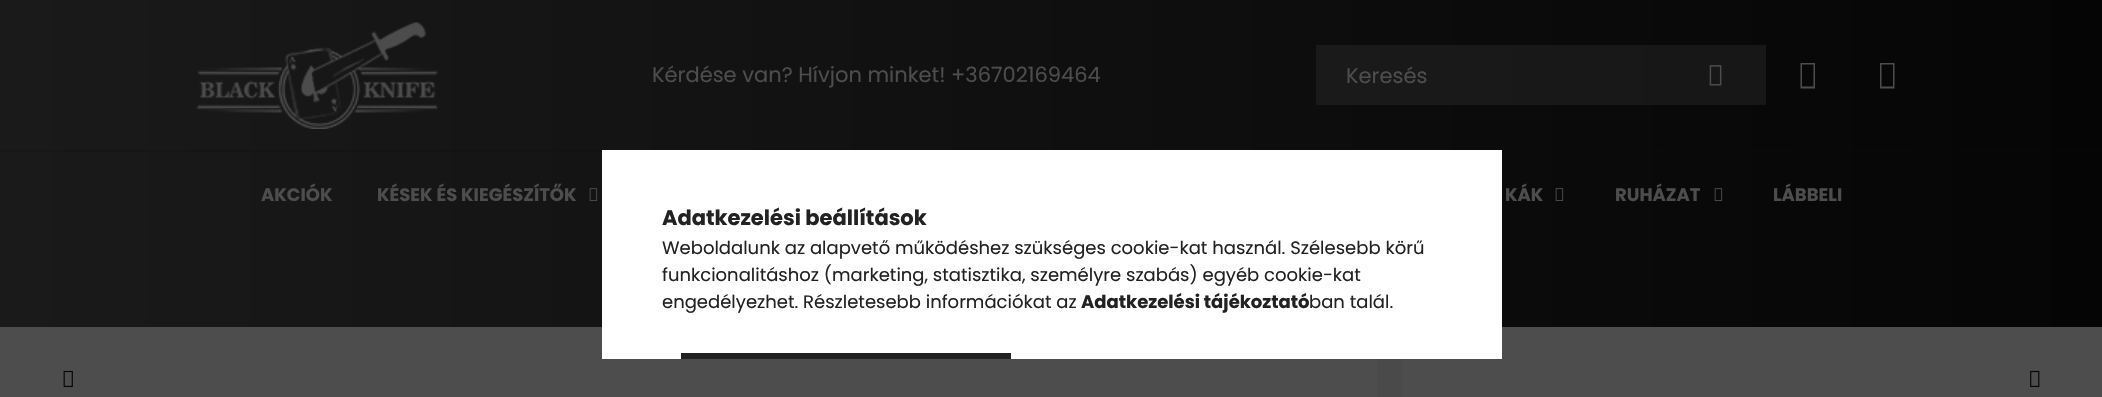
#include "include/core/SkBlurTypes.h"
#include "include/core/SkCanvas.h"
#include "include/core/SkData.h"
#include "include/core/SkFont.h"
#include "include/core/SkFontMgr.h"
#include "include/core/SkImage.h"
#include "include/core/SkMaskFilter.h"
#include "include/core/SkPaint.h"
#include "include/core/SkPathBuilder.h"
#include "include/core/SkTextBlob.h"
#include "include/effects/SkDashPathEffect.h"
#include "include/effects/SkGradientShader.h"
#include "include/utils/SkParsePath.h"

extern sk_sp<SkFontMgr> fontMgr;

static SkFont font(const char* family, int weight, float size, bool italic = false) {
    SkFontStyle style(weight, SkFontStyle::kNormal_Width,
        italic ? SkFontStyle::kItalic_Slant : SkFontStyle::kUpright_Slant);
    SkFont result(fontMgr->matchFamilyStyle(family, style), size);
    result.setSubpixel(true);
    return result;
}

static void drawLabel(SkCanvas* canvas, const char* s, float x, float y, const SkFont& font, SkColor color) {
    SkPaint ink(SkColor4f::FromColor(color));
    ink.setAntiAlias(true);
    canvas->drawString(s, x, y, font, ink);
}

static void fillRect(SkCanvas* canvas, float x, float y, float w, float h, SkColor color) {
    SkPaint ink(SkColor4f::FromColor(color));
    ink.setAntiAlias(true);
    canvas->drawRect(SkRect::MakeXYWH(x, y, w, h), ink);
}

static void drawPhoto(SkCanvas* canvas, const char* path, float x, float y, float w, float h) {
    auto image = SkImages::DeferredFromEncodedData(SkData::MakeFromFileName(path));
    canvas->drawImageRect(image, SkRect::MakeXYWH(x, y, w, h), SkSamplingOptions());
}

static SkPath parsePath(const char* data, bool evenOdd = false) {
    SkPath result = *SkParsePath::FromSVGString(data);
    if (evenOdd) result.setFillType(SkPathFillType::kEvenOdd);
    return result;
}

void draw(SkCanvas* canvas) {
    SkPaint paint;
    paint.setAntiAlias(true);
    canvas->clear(0xFF4D4D4D);
    {
        const SkColor colors[] = {0xFF1A1A1A, 0xFF050505};
        const float stops[] = {0, 1};
        const SkPoint ends[] = {{0, 75}, {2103, 75}};
        paint.setShader(SkGradientShader::MakeLinear(ends, colors, stops, 2, SkTileMode::kClamp));
        paint.setAlpha(255);
    }
    canvas->drawRect(SkRect::MakeXYWH(0, 0, 2102, 150), paint);
    {
        const SkColor colors[] = {0xFF242424, 0xFF141414};
        const float stops[] = {0, 1};
        const SkPoint ends[] = {{0, 75}, {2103, 75}};
        paint.setShader(SkGradientShader::MakeLinear(ends, colors, stops, 2, SkTileMode::kClamp));
        paint.setAlpha(255);
    }
    canvas->drawRect(SkRect::MakeXYWH(1316, 45, 450, 60), paint);
    drawPhoto(canvas, "assets/img1.png", 196, 22, 242, 107);
    SkFont font1 = font("Poppins", 400, 21);
    drawLabel(canvas, "Kérdése van? Hívjon minket! +36702169464", 652, 82, font1, 0xFF4D4D4D);
    drawLabel(canvas, "Keresés", 1346, 83, font1, 0xFF4D4D4D);
    drawPhoto(canvas, "assets/img2.png", 1709, 65, 13, 21);
    paint.setShader(nullptr);
    paint.setColor(0xFF4D4D4D);
    canvas->drawPath(parsePath("M1800.5 88.5V63H1815V88.5ZM1802 86.5H1813.5V64.5H1802Z"), paint);
    canvas->drawPath(parsePath("M1880 88.5V63H1894.5V88.5ZM1881.5 86.5H1893V64.5H1881.5Z"), paint);
    {
        const SkColor colors[] = {0xFF1A1A1A, 0xFF050505};
        const float stops[] = {0, 1};
        const SkPoint ends[] = {{0, 239}, {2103, 239}};
        paint.setShader(SkGradientShader::MakeLinear(ends, colors, stops, 2, SkTileMode::kClamp));
        paint.setAlpha(255);
    }
    canvas->drawRect(SkRect::MakeXYWH(0, 152, 2102, 175), paint);
    {
        const SkColor colors[] = {0xFF171717, 0xFF060606};
        const float stops[] = {0, 1};
        const SkPoint ends[] = {{0, 239}, {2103, 239}};
        paint.setShader(SkGradientShader::MakeLinear(ends, colors, stops, 2, SkTileMode::kClamp));
        paint.setAlpha(255);
    }
    canvas->drawRect(SkRect::MakeXYWH(0, 150, 2102, 2), paint);
    SkFont font2 = font("Poppins", 700, 18);
    drawLabel(canvas, "AKCIÓK", 261, 201, font2, 0xFF4D4D4D);
    drawLabel(canvas, "KÉSEK ÉS KIEGÉSZÍTŐK", 377, 201, font2, 0xFF4D4D4D);
    drawPhoto(canvas, "assets/img3.png", 589, 188, 9, 13);
    drawLabel(canvas, "KÁK", 1505, 201, font2, 0xFF4D4D4D);
    drawPhoto(canvas, "assets/img4.png", 1555, 188, 9, 13);
    drawLabel(canvas, "RUHÁZAT", 1615, 201, font2, 0xFF4D4D4D);
    drawPhoto(canvas, "assets/img5.png", 1714, 188, 9, 13);
    drawLabel(canvas, "LÁBBELI", 1773, 201, font2, 0xFF4D4D4D);
    {
        const SkColor colors[] = {0xFF4A4A4A, 0xFF4D4D4D, 0xFF4D4D4D};
        const float stops[] = {0, 0.28f, 1};
        const SkPoint ends[] = {{1377, 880}, {1907, 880}};
        paint.setShader(SkGradientShader::MakeLinear(ends, colors, stops, 3, SkTileMode::kClamp));
        paint.setAlpha(255);
    }
    canvas->drawRect(SkRect::MakeXYWH(1377, 327, 25, 70), paint);
    drawPhoto(canvas, "assets/img6.png", 63, 370, 10, 17);
    drawPhoto(canvas, "assets/img7.png", 2030, 370, 10, 17);
    fillRect(canvas, 602, 150, 900, 209, 0xFFFFFFFF);
    SkFont font3 = font("Poppins", 700, 21);
    drawLabel(canvas, "Adatkezelési beállítások", 662, 225, font3, 0xFF222222);
    SkFont font4 = font("Poppins", 400, 18);
    drawLabel(canvas, "Weboldalunk az alapvető működéshez szükséges cookie-kat használ. Szélesebb körű", 662, 254, font4, 0xFF222222);
    drawLabel(canvas, "funkcionalitáshoz (marketing, statisztika, személyre szabás) egyéb cookie-kat", 662, 281, font4, 0xFF222222);
    drawLabel(canvas, "engedélyezhet. Részletesebb információkat az", 662, 308, font4, 0xFF222222);
    drawLabel(canvas, "Adatkezelési tájékoztató", 1081, 308, font2, 0xFF222222);
    drawLabel(canvas, "ban talál.", 1309, 308, font4, 0xFF222222);
    {
        const SkColor colors[] = {0xFF555555, 0xFF111111, 0xFF222222, 0xFF222222};
        const float stops[] = {0, 0.33f, 0.67f, 1};
        const SkPoint ends[] = {{21, 383}, {1011, 383}};
        paint.setShader(SkGradientShader::MakeLinear(ends, colors, stops, 4, SkTileMode::kClamp));
        paint.setAlpha(255);
    }
    canvas->drawRect(SkRect::MakeXYWH(681, 353, 330, 6), paint);
}
